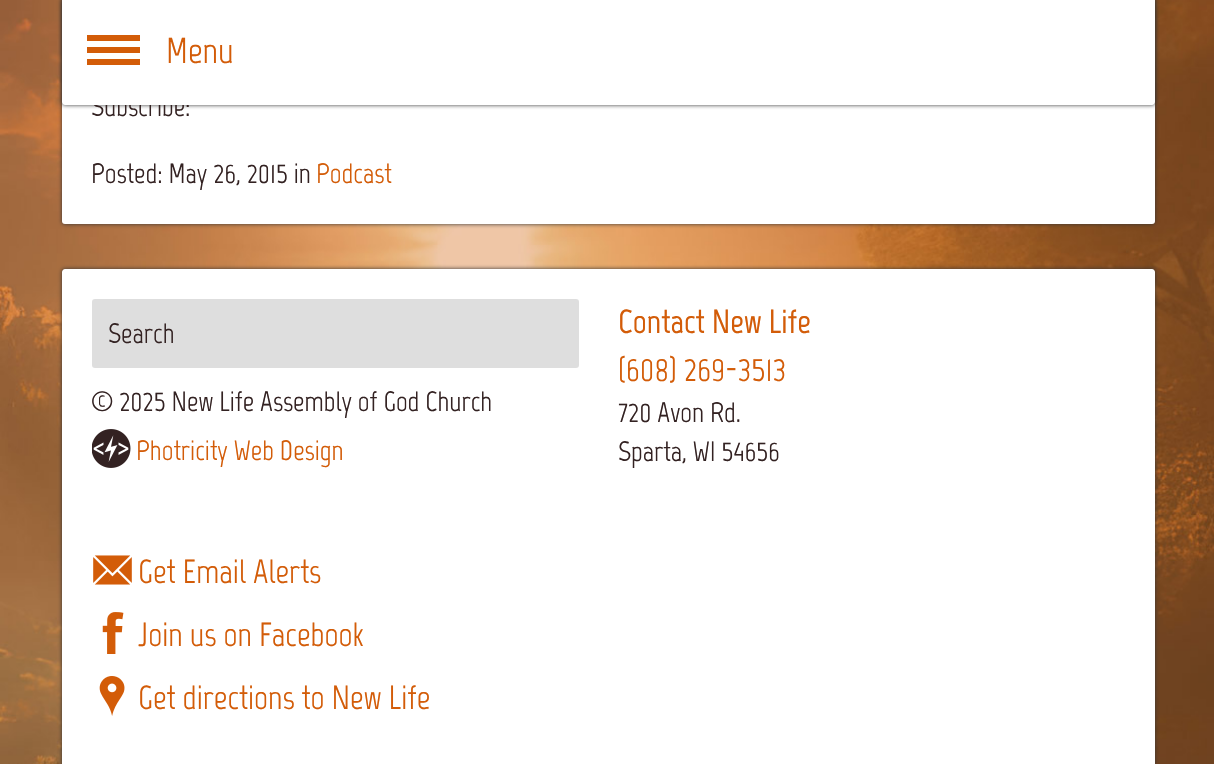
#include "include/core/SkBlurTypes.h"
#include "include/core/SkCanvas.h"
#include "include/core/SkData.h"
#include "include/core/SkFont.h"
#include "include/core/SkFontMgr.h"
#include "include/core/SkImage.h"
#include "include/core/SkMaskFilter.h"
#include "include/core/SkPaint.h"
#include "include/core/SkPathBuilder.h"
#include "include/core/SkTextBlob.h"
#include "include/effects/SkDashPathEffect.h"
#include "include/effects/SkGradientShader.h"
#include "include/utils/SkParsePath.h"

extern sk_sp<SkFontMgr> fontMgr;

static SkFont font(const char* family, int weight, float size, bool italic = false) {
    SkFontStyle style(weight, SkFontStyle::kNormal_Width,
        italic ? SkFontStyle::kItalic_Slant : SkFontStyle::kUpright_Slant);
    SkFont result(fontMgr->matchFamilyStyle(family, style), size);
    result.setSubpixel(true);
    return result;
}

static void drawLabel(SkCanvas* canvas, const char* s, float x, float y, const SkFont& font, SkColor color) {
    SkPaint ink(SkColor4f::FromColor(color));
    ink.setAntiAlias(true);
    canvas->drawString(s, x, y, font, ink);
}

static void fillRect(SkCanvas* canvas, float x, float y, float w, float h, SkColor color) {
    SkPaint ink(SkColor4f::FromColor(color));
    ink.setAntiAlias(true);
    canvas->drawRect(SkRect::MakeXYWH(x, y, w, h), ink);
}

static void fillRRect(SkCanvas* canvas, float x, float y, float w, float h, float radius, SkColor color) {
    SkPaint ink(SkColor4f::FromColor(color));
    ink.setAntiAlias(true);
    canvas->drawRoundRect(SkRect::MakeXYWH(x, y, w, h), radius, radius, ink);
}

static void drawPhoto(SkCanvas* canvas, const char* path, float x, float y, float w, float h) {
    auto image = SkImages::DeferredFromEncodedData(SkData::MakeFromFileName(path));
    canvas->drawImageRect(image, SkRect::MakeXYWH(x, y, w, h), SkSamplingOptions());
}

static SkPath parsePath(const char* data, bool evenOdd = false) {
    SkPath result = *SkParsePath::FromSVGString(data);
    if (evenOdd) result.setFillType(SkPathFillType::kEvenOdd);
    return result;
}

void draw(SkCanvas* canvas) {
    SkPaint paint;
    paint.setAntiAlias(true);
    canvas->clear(0xFFFFFFFF);
    drawPhoto(canvas, "assets/img1.png", 0, 0, 1214, 764);
    paint.setColor(0xFF333333);
    paint.setMaskFilter(SkMaskFilter::MakeBlur(kNormal_SkBlurStyle, 2));
    canvas->drawRoundRect(SkRect::MakeXYWH(62, -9, 1093, 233), 3, 3, paint);
    paint.setMaskFilter(nullptr);
    fillRRect(canvas, 62, -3, 1093, 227, 3, 0xFFFFFFFF);
    paint.setMaskFilter(SkMaskFilter::MakeBlur(kNormal_SkBlurStyle, 2));
    canvas->drawRoundRect(SkRect::MakeXYWH(62, 0, 1093, 105), 3, 3, paint);
    paint.setMaskFilter(nullptr);
    SkFont font1 = font("Marvel", 400, 28);
    drawLabel(canvas, "Subscribe:", 91, 116, font1, 0xFF332222);
    paint.setColor(0xFFFFFFFF);
    canvas->drawPath(parsePath("M62 0H1155V102C1155 103.5 1153.5 105 1152 105H65C63.5 105 62 103.5 62 102Z"), paint);
    fillRect(canvas, 87, 35, 53, 6, 0xFFD35C08);
    fillRect(canvas, 87, 47, 53, 6, 0xFFD35C08);
    fillRect(canvas, 87, 59, 53, 6, 0xFFD35C08);
    SkFont font2 = font("Marvel", 400, 36);
    drawLabel(canvas, "Menu", 166, 63, font2, 0xFFD35C08);
    drawLabel(canvas, "Posted: May 26, 2015 in", 91, 183, font1, 0xFF332222);
    drawLabel(canvas, "Podcast", 316, 183, font1, 0xFFD35C08);
    paint.setColor(0xFF333333);
    paint.setMaskFilter(SkMaskFilter::MakeBlur(kNormal_SkBlurStyle, 2));
    canvas->drawRoundRect(SkRect::MakeXYWH(62, 269, 1093, 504), 3, 3, paint);
    paint.setMaskFilter(nullptr);
    paint.setColor(0xFFFFFFFF);
    canvas->drawPath(parsePath("M65 269H1152C1153.5 269 1155 270.5 1155 272V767H62V272C62 270.5 63.5 269 65 269Z"), paint);
    fillRRect(canvas, 92, 299, 487, 69, 3, 0xFFDEDEDE);
    drawLabel(canvas, "Search", 108, 343, font1, 0xFF332222);
    drawLabel(canvas, "© 2025 New Life Assembly of God Church", 91, 411, font1, 0xFF332222);
    drawPhoto(canvas, "assets/img2.png", 92, 429, 39, 39);
    drawLabel(canvas, "Photricity Web Design", 136, 460, font1, 0xFFD35C08);
    SkFont font3 = font("Marvel", 700, 33.5f);
    drawLabel(canvas, "Contact New Life", 618, 333, font3, 0xFFD35C08);
    SkFont font4 = font("Marvel", 400, 33.5f);
    drawLabel(canvas, "(608) 269-3513", 618, 381, font4, 0xFFD35C08);
    drawLabel(canvas, "720 Avon Rd.", 618, 422, font1, 0xFF332222);
    drawLabel(canvas, "Sparta, WI 54656", 618, 461, font1, 0xFF332222);
    drawPhoto(canvas, "assets/img3.png", 93, 555, 39, 30);
    drawLabel(canvas, "Get Email Alerts", 138, 583, font4, 0xFFD35C08);
    drawPhoto(canvas, "assets/img4.png", 102, 612, 22, 42);
    drawLabel(canvas, "Join us on Facebook", 138, 646, font4, 0xFFD35C08);
    drawPhoto(canvas, "assets/img5.png", 99, 676, 26, 40);
    drawLabel(canvas, "Get directions to New Life", 138, 709, font4, 0xFFD35C08);
}
